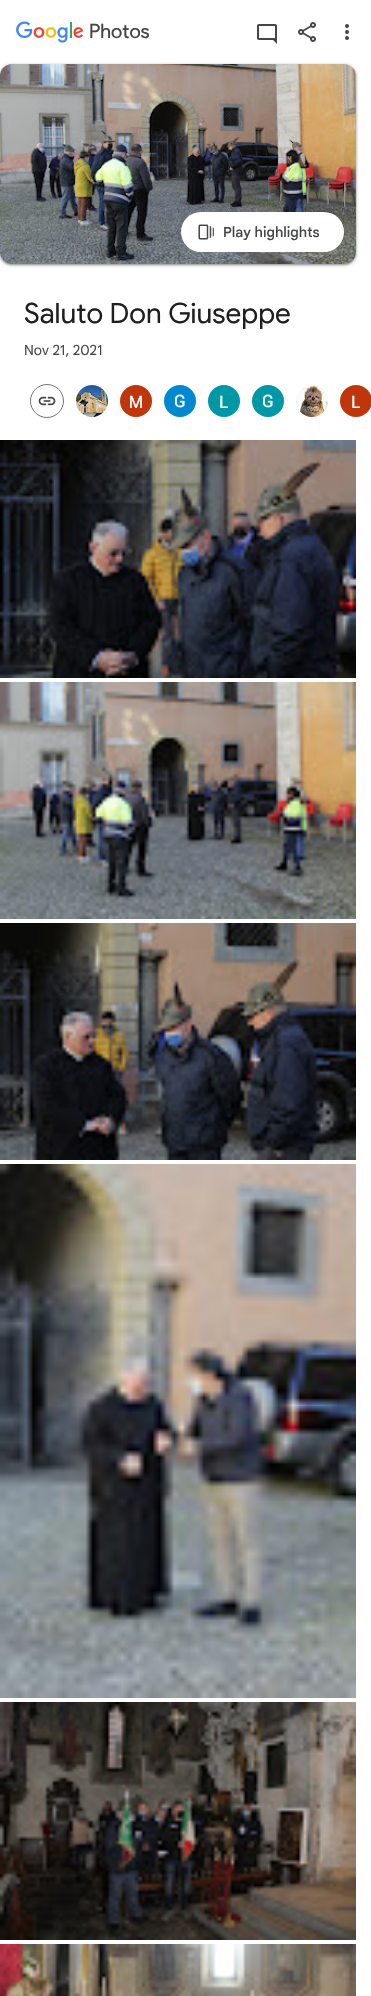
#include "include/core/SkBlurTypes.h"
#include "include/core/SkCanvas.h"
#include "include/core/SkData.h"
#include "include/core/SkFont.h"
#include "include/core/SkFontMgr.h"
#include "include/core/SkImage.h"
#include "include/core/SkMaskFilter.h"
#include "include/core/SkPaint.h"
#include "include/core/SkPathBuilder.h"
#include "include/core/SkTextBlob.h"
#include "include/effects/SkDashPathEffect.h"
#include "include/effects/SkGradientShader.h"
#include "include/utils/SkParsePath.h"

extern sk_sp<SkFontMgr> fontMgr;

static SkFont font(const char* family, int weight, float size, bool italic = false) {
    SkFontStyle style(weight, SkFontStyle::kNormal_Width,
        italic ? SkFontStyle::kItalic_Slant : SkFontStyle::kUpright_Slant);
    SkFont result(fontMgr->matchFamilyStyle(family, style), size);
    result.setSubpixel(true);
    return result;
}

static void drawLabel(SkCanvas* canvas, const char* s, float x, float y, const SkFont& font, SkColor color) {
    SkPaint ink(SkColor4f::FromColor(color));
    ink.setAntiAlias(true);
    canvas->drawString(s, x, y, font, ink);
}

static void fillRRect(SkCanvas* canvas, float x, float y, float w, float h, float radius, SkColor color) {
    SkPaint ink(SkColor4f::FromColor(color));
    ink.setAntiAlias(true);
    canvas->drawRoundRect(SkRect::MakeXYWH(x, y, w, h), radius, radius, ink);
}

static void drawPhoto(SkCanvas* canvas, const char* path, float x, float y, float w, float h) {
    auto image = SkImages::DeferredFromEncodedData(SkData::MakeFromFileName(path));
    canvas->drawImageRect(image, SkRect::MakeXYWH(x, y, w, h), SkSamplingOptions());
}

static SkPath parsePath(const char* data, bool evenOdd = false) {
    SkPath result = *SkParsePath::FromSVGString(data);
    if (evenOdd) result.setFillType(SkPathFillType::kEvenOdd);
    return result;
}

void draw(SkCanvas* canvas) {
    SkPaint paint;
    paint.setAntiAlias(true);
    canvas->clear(0xFFFFFFFF);
    drawPhoto(canvas, "assets/img1.png", 16, 21, 68, 22);
    SkFont font1 = font("Product Sans", 400, 20);
    drawLabel(canvas, "Photos", 89, 38, font1, 0xFF444746);
    drawPhoto(canvas, "assets/img2.png", 257, 24, 20, 20);
    drawPhoto(canvas, "assets/img3.png", 298, 22, 18, 20);
    drawPhoto(canvas, "assets/img4.png", 345, 24, 4, 16);
    canvas->save();
    canvas->clipPath(parsePath("M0 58H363V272H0ZM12 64H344C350.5 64 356 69.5 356 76V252C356 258.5 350.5 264 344 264H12C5.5 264 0 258.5 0 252V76C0 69.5 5.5 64 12 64Z", true), true);
    paint.setColor(0x26000000);
    paint.setMaskFilter(SkMaskFilter::MakeBlur(kNormal_SkBlurStyle, 1.5f));
    canvas->drawRoundRect(SkRect::MakeXYWH(-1, 64, 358, 202), 13, 13, paint);
    paint.setMaskFilter(nullptr);
    canvas->restore();
    paint.setColor(0x4D000000);
    paint.setMaskFilter(SkMaskFilter::MakeBlur(kNormal_SkBlurStyle, 1));
    canvas->drawRoundRect(SkRect::MakeXYWH(0, 65, 356, 200), 12, 12, paint);
    paint.setMaskFilter(nullptr);
    drawPhoto(canvas, "assets/img5.png", 0, 64, 356, 200);
    fillRRect(canvas, 181, 212, 163, 40, 20, 0xFFFFFFFF);
    drawPhoto(canvas, "assets/img6.png", 198, 224, 16, 16);
    SkFont font2 = font("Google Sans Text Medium", 500, 14);
    drawLabel(canvas, "Play highlights", 223, 237, font2, 0xFF444746);
    SkFont font3 = font("Google Sans", 400, 28);
    drawLabel(canvas, "Saluto Don Giuseppe", 24, 323, font3, 0xFF1F1F1F);
    SkFont font4 = font("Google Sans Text", 400, 14);
    drawLabel(canvas, "Nov 21, 2021", 24, 355, font4, 0xFF444746);
    paint.setStroke(true);
    paint.setStrokeWidth(1);
    paint.setColor(0xFF747775);
    canvas->drawCircle(47, 401, 16.5f, paint);
    drawPhoto(canvas, "assets/img7.png", 38, 396, 18, 10);
    drawPhoto(canvas, "assets/img8.png", 76, 385, 32, 32);
    drawPhoto(canvas, "assets/img9.png", 120, 385, 32, 32);
    drawPhoto(canvas, "assets/img10.png", 164, 385, 32, 32);
    drawPhoto(canvas, "assets/img11.png", 208, 385, 32, 32);
    drawPhoto(canvas, "assets/img12.png", 252, 385, 32, 32);
    drawPhoto(canvas, "assets/img13.png", 296, 385, 32, 32);
    drawPhoto(canvas, "assets/img14.png", 340, 385, 31, 32);
    drawPhoto(canvas, "assets/img15.png", 0, 440, 356, 238);
    drawPhoto(canvas, "assets/img16.png", 0, 682, 356, 237);
    drawPhoto(canvas, "assets/img17.png", 0, 923, 356, 237);
    drawPhoto(canvas, "assets/img18.png", 0, 1164, 356, 534);
    drawPhoto(canvas, "assets/img19.png", 0, 1702, 356, 238);
    drawPhoto(canvas, "assets/img20.png", 0, 1944, 356, 52);
}
